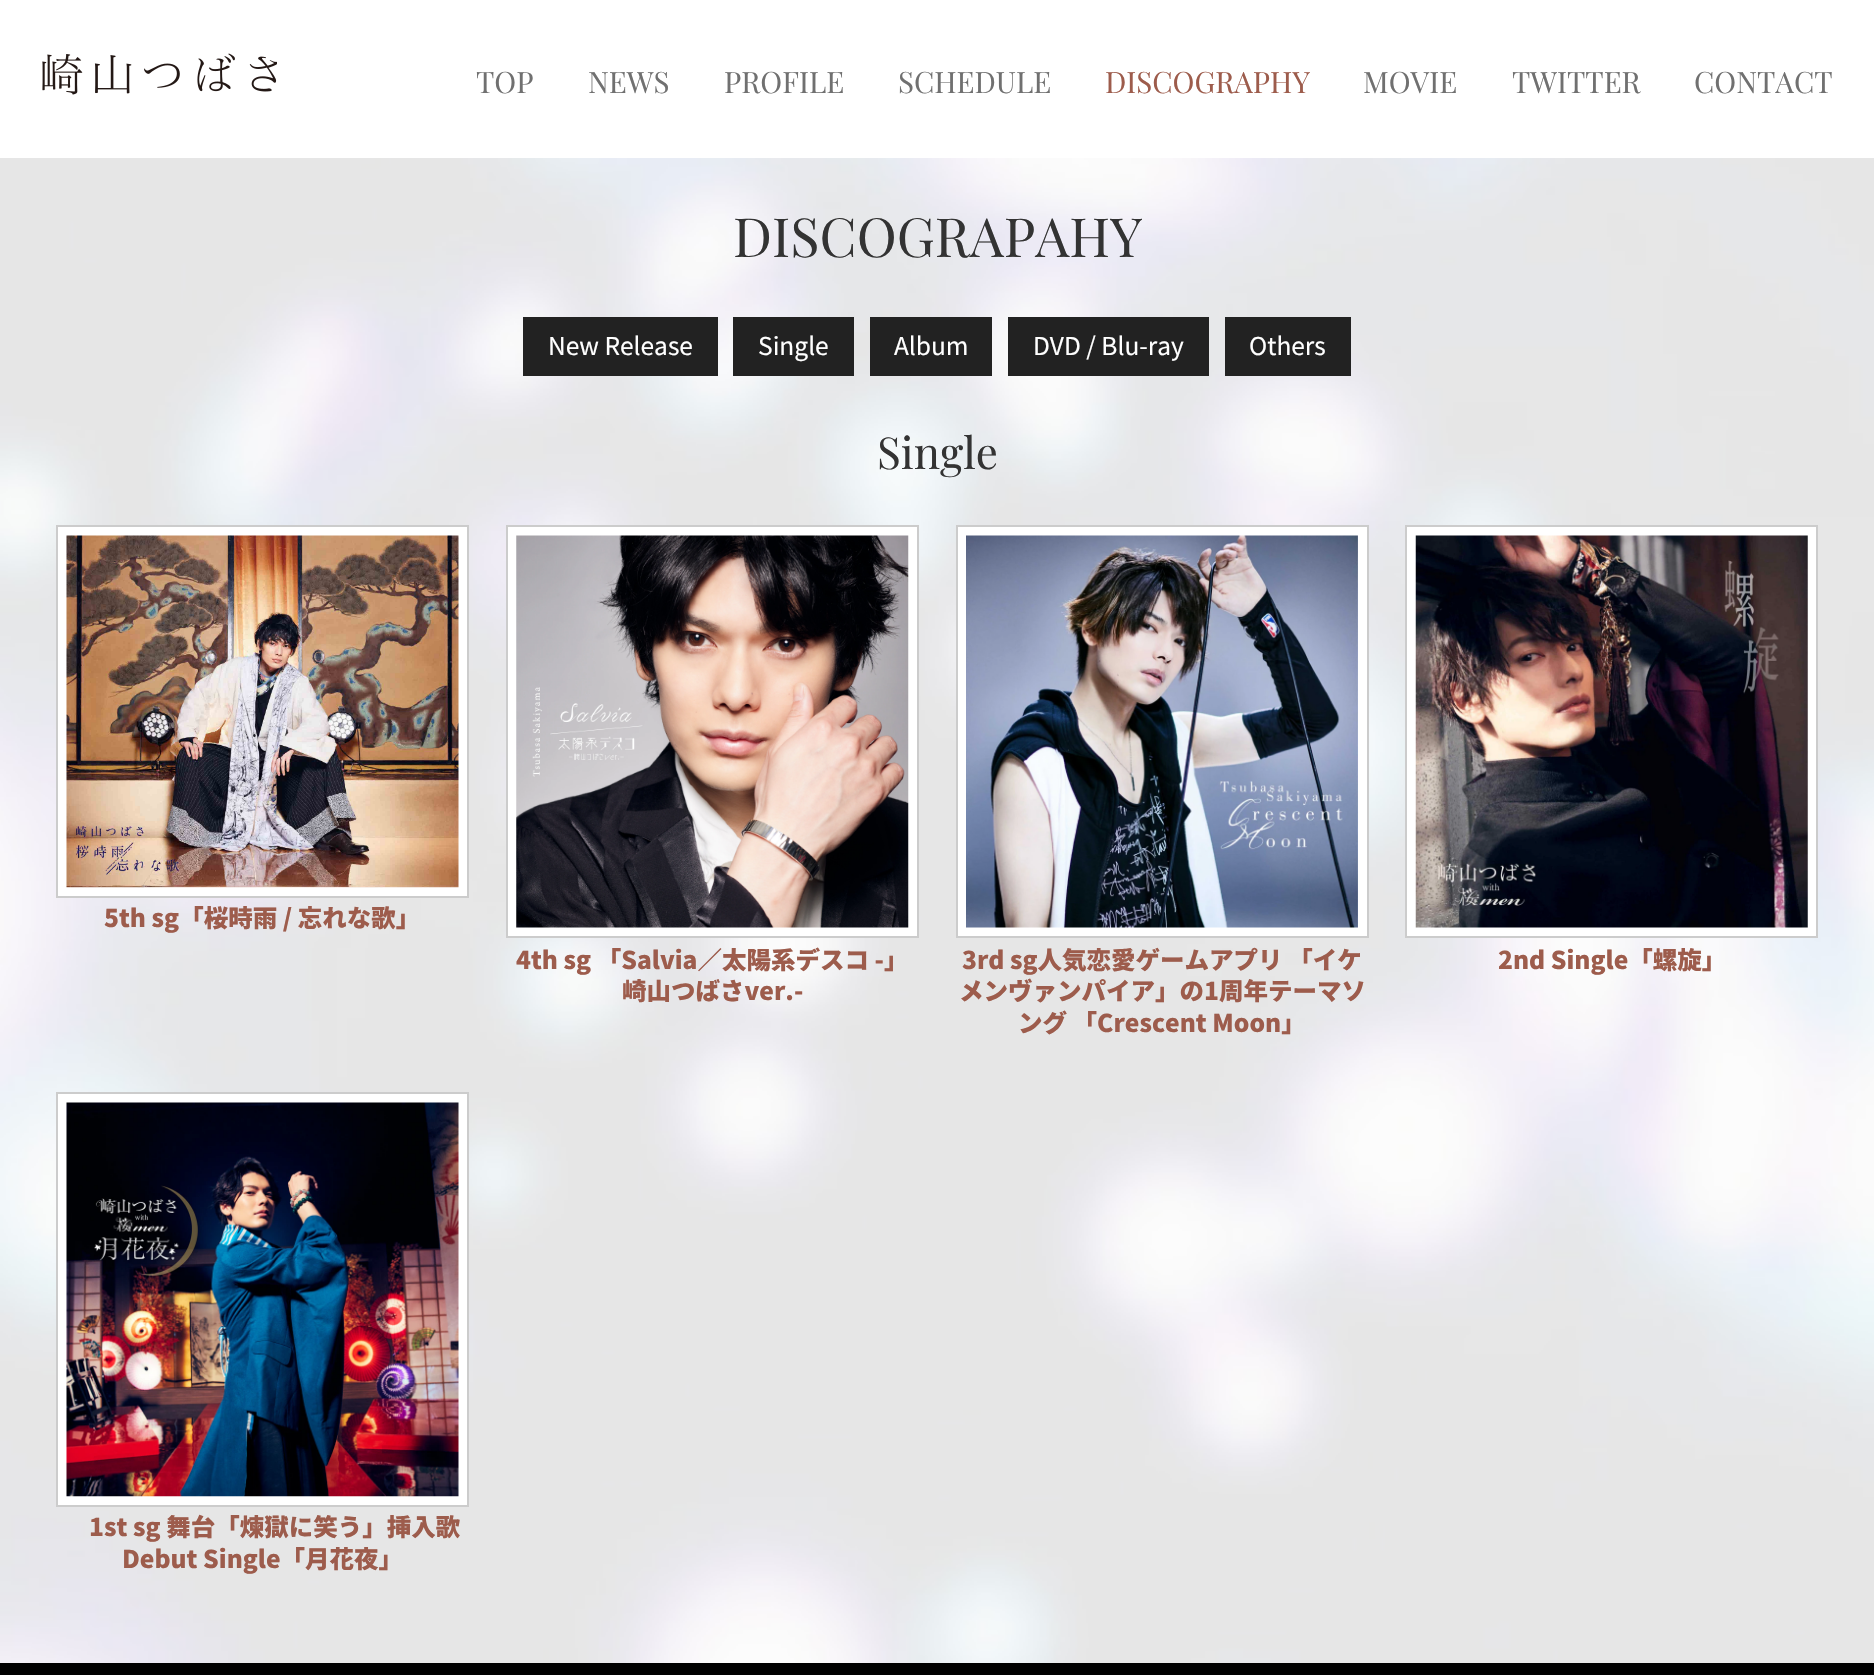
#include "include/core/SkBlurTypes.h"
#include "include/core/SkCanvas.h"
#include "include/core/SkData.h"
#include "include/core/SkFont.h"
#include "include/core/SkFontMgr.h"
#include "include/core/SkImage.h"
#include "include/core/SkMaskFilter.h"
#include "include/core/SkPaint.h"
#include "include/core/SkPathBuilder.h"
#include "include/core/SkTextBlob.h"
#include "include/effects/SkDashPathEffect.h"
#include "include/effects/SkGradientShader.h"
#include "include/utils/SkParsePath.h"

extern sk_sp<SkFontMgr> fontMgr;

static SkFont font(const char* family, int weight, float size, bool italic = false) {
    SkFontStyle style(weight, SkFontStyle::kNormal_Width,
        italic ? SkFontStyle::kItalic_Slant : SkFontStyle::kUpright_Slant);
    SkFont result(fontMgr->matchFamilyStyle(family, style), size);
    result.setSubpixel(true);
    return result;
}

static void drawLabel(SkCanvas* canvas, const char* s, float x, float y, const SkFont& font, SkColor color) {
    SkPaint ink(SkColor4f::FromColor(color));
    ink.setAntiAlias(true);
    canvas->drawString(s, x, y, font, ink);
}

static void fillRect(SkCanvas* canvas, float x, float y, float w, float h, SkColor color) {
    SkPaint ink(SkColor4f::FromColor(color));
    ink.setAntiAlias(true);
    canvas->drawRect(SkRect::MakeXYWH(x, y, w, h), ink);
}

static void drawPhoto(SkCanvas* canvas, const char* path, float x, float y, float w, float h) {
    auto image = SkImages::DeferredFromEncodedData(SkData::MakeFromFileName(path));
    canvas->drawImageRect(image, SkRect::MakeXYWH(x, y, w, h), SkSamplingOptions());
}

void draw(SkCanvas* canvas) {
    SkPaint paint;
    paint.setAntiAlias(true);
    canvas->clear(0xFFFFFFFF);
    drawPhoto(canvas, "assets/img1.png", 42, 53, 235, 42);
    SkFont font1 = font("Playfair Display", 400, 29.5f);
    drawLabel(canvas, "TOP", 476, 93, font1, 0xFF707070);
    drawLabel(canvas, "NEWS", 588, 93, font1, 0xFF707070);
    drawLabel(canvas, "PROFILE", 724, 93, font1, 0xFF707070);
    drawLabel(canvas, "SCHEDULE", 898, 93, font1, 0xFF707070);
    drawLabel(canvas, "DISCOGRAPHY", 1105, 93, font1, 0xFF9D5C4C);
    drawLabel(canvas, "MOVIE", 1363, 93, font1, 0xFF707070);
    drawLabel(canvas, "TWITTER", 1512, 93, font1, 0xFF707070);
    drawLabel(canvas, "CONTACT", 1694, 93, font1, 0xFF707070);
    drawPhoto(canvas, "assets/img2.png", 0, 158, 1874, 1505);
    SkFont font2 = font("Playfair Display", 400, 54);
    drawLabel(canvas, "DISCOGRAPAHY", 733, 257, font2, 0xFF333333);
    fillRect(canvas, 523, 317, 195, 59, 0xFF222222);
    SkFont font3 = font("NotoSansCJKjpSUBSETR", 400, 24.5f);
    drawLabel(canvas, "New Release", 548, 355, font3, 0xFFFFFFFF);
    fillRect(canvas, 733, 317, 121, 59, 0xFF222222);
    drawLabel(canvas, "Single", 758, 355, font3, 0xFFFFFFFF);
    fillRect(canvas, 870, 317, 122, 59, 0xFF222222);
    drawLabel(canvas, "Album", 894, 355, font3, 0xFFFFFFFF);
    fillRect(canvas, 1008, 317, 201, 59, 0xFF222222);
    drawLabel(canvas, "DVD / Blu-ray", 1033, 355, font3, 0xFFFFFFFF);
    fillRect(canvas, 1225, 317, 126, 59, 0xFF222222);
    drawLabel(canvas, "Others", 1249, 355, font3, 0xFFFFFFFF);
    SkFont font4 = font("Playfair Display", 400, 44);
    drawLabel(canvas, "Single", 877, 469, font4, 0xFF333333);
    paint.setColor(0xFFFFFFFF);
    canvas->drawRect(SkRect::MakeXYWH(57, 526, 411, 371), paint);
    paint.setStroke(true);
    paint.setStrokeWidth(2);
    paint.setColor(0xFFCCCCCC);
    canvas->drawRect(SkRect::MakeXYWH(57, 526, 411, 371), paint);
    drawPhoto(canvas, "assets/img3.png", 66, 535, 393, 353);
    SkFont font5 = font("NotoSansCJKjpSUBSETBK", 900, 24.5f);
    drawLabel(canvas, "5th sg「桜時雨 / 忘れな歌」", 104, 927, font5, 0xFF9D5C4C);
    paint.setStroke(false);
    paint.setColor(0xFFFFFFFF);
    canvas->drawRect(SkRect::MakeXYWH(507, 526, 411, 411), paint);
    paint.setStroke(true);
    paint.setColor(0xFFCCCCCC);
    canvas->drawRect(SkRect::MakeXYWH(507, 526, 411, 411), paint);
    drawPhoto(canvas, "assets/img4.png", 516, 535, 393, 393);
    drawLabel(canvas, "4th sg 「Salvia／太陽系デスコ -」", 516, 969, font5, 0xFF9D5C4C);
    drawLabel(canvas, "崎山つばさver.-", 622, 1000, font5, 0xFF9D5C4C);
    paint.setStroke(false);
    paint.setColor(0xFFFFFFFF);
    canvas->drawRect(SkRect::MakeXYWH(957, 526, 411, 411), paint);
    paint.setStroke(true);
    paint.setColor(0xFFCCCCCC);
    canvas->drawRect(SkRect::MakeXYWH(957, 526, 411, 411), paint);
    drawPhoto(canvas, "assets/img5.png", 966, 535, 392, 393);
    drawLabel(canvas, "3rd sg人気恋愛ゲームアプリ 「イケ", 962, 969, font5, 0xFF9D5C4C);
    drawLabel(canvas, "メンヴァンパイア」の1周年テーマソ", 959, 1000, font5, 0xFF9D5C4C);
    drawLabel(canvas, "ング 「Crescent Moon」", 1018, 1032, font5, 0xFF9D5C4C);
    paint.setStroke(false);
    paint.setColor(0xFFFFFFFF);
    canvas->drawRect(SkRect::MakeXYWH(1406, 526, 411, 411), paint);
    paint.setStroke(true);
    paint.setColor(0xFFCCCCCC);
    canvas->drawRect(SkRect::MakeXYWH(1406, 526, 411, 411), paint);
    drawPhoto(canvas, "assets/img6.png", 1415, 535, 393, 393);
    drawLabel(canvas, "2nd Single「螺旋」", 1498, 969, font5, 0xFF9D5C4C);
    paint.setStroke(false);
    paint.setColor(0xFFFFFFFF);
    canvas->drawRect(SkRect::MakeXYWH(57, 1093, 411, 413), paint);
    paint.setStroke(true);
    paint.setColor(0xFFCCCCCC);
    canvas->drawRect(SkRect::MakeXYWH(57, 1093, 411, 413), paint);
    drawPhoto(canvas, "assets/img7.png", 66, 1102, 393, 395);
    drawLabel(canvas, "1st sg 舞台「煉獄に笑う」挿入歌", 89, 1536, font5, 0xFF9D5C4C);
    drawLabel(canvas, "Debut Single「月花夜」", 122, 1568, font5, 0xFF9D5C4C);
    fillRect(canvas, 0, 1663, 1874, 12, 0xFF000000);
}
